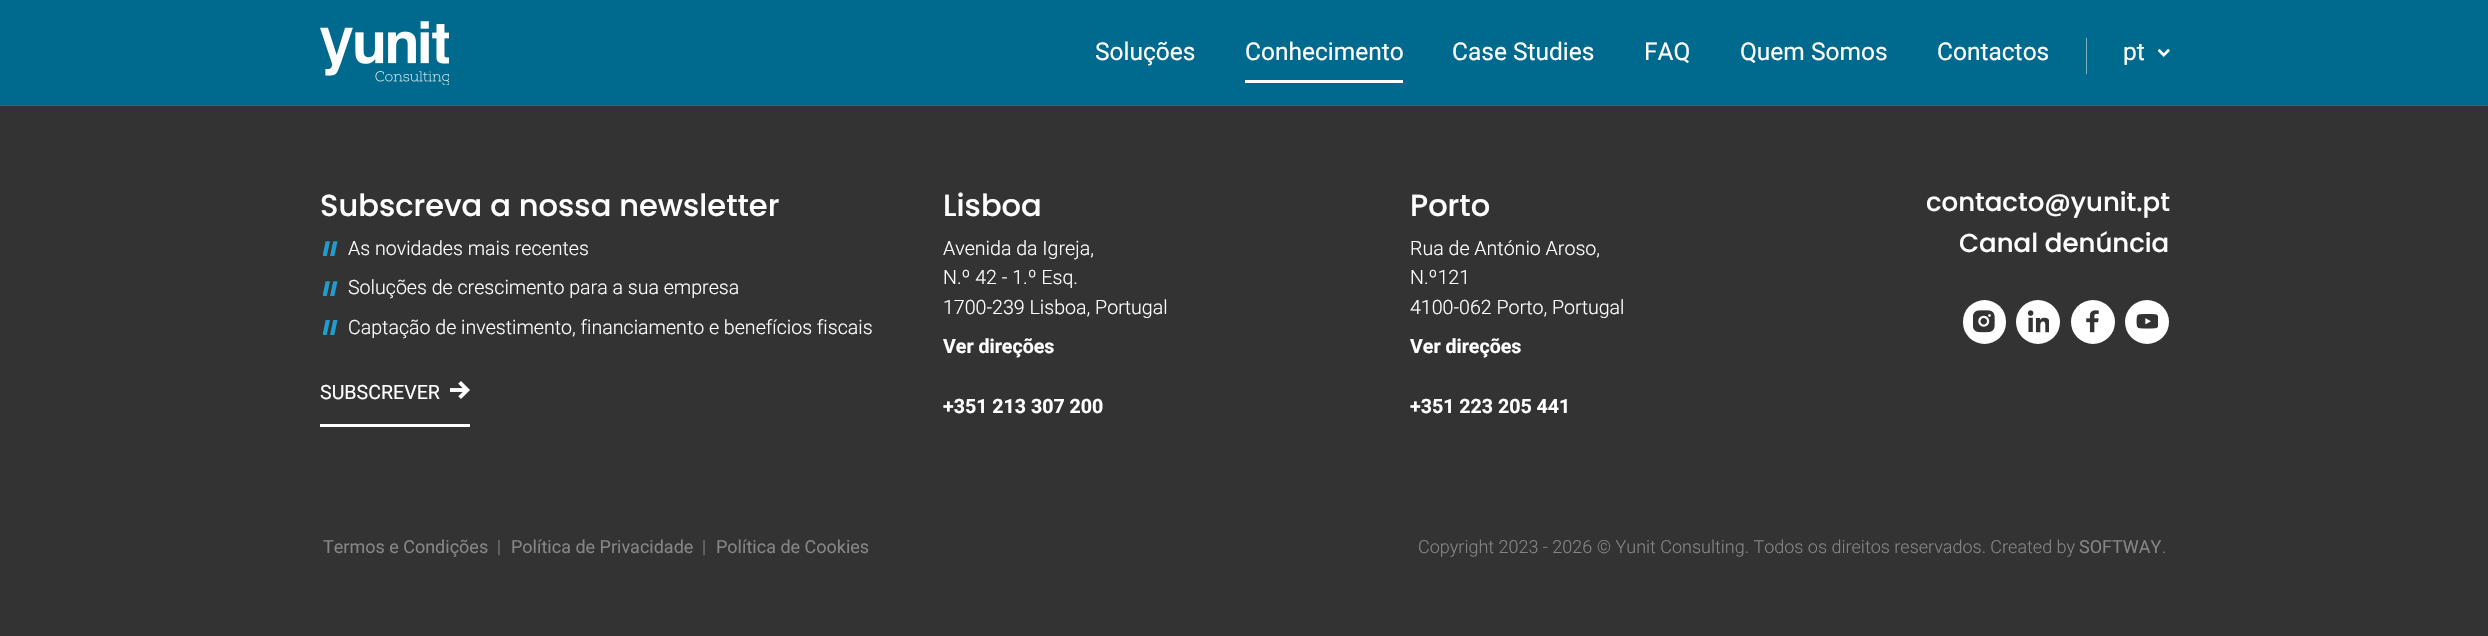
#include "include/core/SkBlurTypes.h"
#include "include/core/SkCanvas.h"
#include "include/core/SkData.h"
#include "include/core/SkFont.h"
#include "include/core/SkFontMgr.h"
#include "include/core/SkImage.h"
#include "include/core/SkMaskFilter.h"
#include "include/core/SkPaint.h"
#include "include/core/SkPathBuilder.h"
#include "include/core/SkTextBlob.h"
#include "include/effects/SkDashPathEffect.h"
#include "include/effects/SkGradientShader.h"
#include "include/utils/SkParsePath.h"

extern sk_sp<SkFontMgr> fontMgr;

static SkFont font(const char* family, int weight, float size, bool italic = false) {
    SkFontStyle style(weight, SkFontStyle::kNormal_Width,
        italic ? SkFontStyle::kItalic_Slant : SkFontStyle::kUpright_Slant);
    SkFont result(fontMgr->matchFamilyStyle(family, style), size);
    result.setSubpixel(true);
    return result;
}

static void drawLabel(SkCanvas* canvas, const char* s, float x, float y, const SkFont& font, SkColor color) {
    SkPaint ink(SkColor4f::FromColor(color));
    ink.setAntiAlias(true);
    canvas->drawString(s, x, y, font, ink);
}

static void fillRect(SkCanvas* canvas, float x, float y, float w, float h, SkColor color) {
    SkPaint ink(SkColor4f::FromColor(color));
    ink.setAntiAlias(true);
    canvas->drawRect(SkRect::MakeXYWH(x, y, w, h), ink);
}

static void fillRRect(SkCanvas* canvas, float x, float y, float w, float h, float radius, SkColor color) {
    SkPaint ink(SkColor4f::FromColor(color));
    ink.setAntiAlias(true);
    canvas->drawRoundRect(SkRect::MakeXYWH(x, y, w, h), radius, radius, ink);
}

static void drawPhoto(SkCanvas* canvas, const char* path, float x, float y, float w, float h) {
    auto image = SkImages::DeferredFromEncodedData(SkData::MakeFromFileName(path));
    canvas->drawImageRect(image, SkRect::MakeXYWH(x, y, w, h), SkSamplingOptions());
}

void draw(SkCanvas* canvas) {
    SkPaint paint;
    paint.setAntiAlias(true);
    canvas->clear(0xFF333333);
    fillRect(canvas, 0, 0, 2488, 105, 0xFF006A8E);
    fillRect(canvas, 0, 105, 2488, 1, 0xFF0F7395);
    drawPhoto(canvas, "assets/img1.png", 320, 21, 129, 64);
    SkFont font1 = font("Roboto", 400, 24.5f);
    drawLabel(canvas, "Soluções", 1095, 60, font1, 0xFFFFFFFF);
    drawLabel(canvas, "Conhecimento", 1245, 60, font1, 0xFFFFFFFF);
    fillRect(canvas, 1245, 80, 158, 3, 0xFFFFFFFF);
    drawLabel(canvas, "Case Studies", 1452, 60, font1, 0xFFFFFFFF);
    drawLabel(canvas, "FAQ", 1644, 60, font1, 0xFFFFFFFF);
    drawLabel(canvas, "Quem Somos", 1740, 60, font1, 0xFFFFFFFF);
    drawLabel(canvas, "Contactos", 1937, 60, font1, 0xFFFFFFFF);
    fillRect(canvas, 2086, 38, 1, 36, 0xFF80B5C7);
    drawLabel(canvas, "pt", 2123, 60, font1, 0xFFFFFFFF);
    drawPhoto(canvas, "assets/img2.png", 2158, 49, 12, 8);
    SkFont font2 = font("Poppins", 500, 30.5f);
    drawLabel(canvas, "Subscreva a nossa newsletter", 320, 216, font2, 0xFFFFFFFF);
    drawPhoto(canvas, "assets/img3.png", 323, 241, 15, 15);
    SkFont font3 = font("Roboto", 300, 19.6f);
    drawLabel(canvas, "As novidades mais recentes", 348, 255, font3, 0xFFFFFFFF);
    drawPhoto(canvas, "assets/img3.png", 323, 281, 15, 15);
    drawLabel(canvas, "Soluções de crescimento para a sua empresa", 348, 294, font3, 0xFFFFFFFF);
    drawPhoto(canvas, "assets/img4.png", 323, 320, 15, 15);
    drawLabel(canvas, "Captação de investimento, financiamento e benefícios fiscais", 348, 334, font3, 0xFFFFFFFF);
    SkFont font4 = font("Roboto", 400, 19.6f);
    drawLabel(canvas, "SUBSCREVER", 320, 399, font4, 0xFFFFFFFF);
    drawPhoto(canvas, "assets/img5.png", 450, 381, 20, 18);
    fillRect(canvas, 320, 424, 150, 3, 0xFFFFFFFF);
    drawLabel(canvas, "Lisboa", 943, 216, font2, 0xFFFFFFFF);
    drawLabel(canvas, "Avenida da Igreja,", 943, 255, font3, 0xFFFFFFFF);
    drawLabel(canvas, "N.º 42 - 1.º Esq.", 943, 284, font3, 0xFFFFFFFF);
    drawLabel(canvas, "1700-239 Lisboa, Portugal", 943, 314, font3, 0xFFFFFFFF);
    SkFont font5 = font("Roboto", 700, 19.6f);
    drawLabel(canvas, "Ver direções", 943, 353, font5, 0xFFFFFFFF);
    drawLabel(canvas, "+351 213 307 200", 943, 413, font5, 0xFFFFFFFF);
    drawLabel(canvas, "Porto", 1410, 216, font2, 0xFFFFFFFF);
    drawLabel(canvas, "Rua de António Aroso,", 1410, 255, font3, 0xFFFFFFFF);
    drawLabel(canvas, "N.º121", 1410, 284, font3, 0xFFFFFFFF);
    drawLabel(canvas, "4100-062 Porto, Portugal", 1410, 314, font3, 0xFFFFFFFF);
    drawLabel(canvas, "Ver direções", 1410, 353, font5, 0xFFFFFFFF);
    drawLabel(canvas, "+351 223 205 441", 1410, 413, font5, 0xFFFFFFFF);
    SkFont font6 = font("Poppins", 500, 26);
    drawLabel(canvas, "contacto@yunit.pt", 1926, 211, font6, 0xFFFFFFFF);
    drawLabel(canvas, "Canal denúncia", 1959, 252, font6, 0xFFFFFFFF);
    fillRRect(canvas, 1963, 300, 43, 44, 21.5f, 0xFFFFFFFF);
    drawPhoto(canvas, "assets/img6.png", 1973, 310, 22, 23);
    paint.setColor(0xFFFFFFFF);
    canvas->drawCircle(2038, 322, 22, paint);
    drawPhoto(canvas, "assets/img7.png", 2028, 310, 21, 23);
    canvas->drawCircle(2093, 322, 22, paint);
    drawPhoto(canvas, "assets/img8.png", 2086, 310, 13, 23);
    canvas->drawCircle(2147, 322, 22, paint);
    drawPhoto(canvas, "assets/img9.png", 2136, 313, 22, 16);
    SkFont font7 = font("Roboto", 400, 18);
    drawLabel(canvas, "Termos e Condições", 323, 553, font7, 0xFF858585);
    SkFont font8 = font("Roboto", 300, 18);
    drawLabel(canvas, "|", 497, 553, font8, 0xFF858585);
    drawLabel(canvas, "Política de Privacidade", 511, 553, font7, 0xFF858585);
    drawLabel(canvas, "|", 702, 553, font8, 0xFF858585);
    drawLabel(canvas, "Política de Cookies", 716, 553, font7, 0xFF858585);
    drawLabel(canvas, "Copyright 2023 - 2026 © Yunit Consulting. Todos os direitos reservados. Created by", 1418, 553, font8, 0xFF858585);
    drawLabel(canvas, "SOFTWAY", 2079, 553, font7, 0xFF858585);
    drawLabel(canvas, ".", 2162, 553, font8, 0xFF858585);
}
